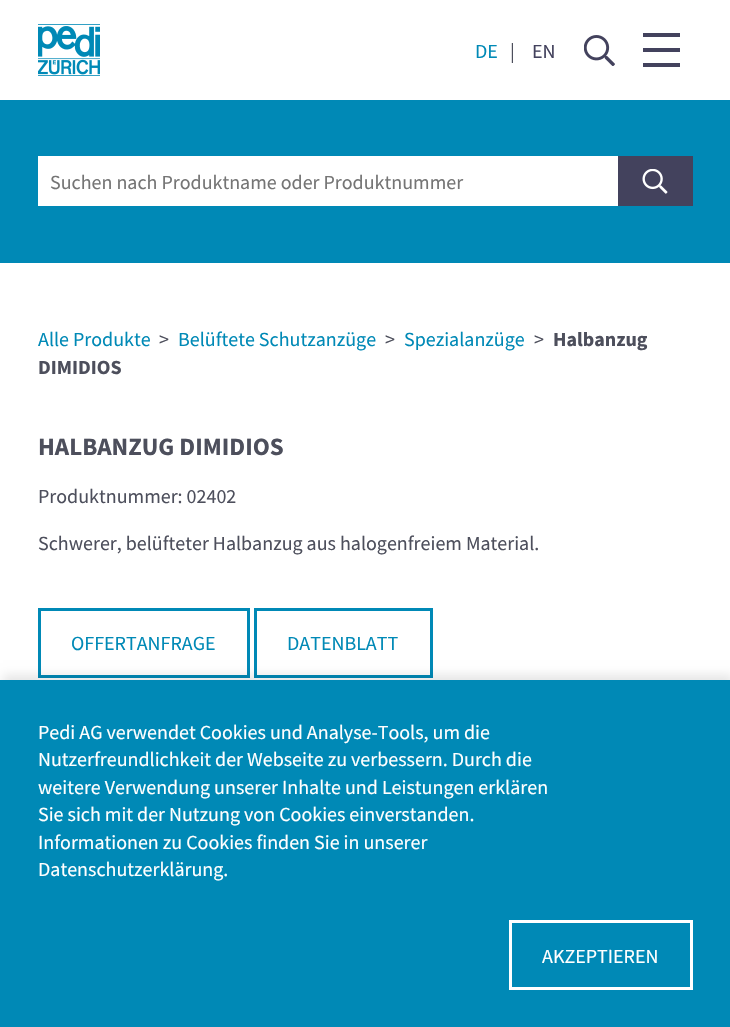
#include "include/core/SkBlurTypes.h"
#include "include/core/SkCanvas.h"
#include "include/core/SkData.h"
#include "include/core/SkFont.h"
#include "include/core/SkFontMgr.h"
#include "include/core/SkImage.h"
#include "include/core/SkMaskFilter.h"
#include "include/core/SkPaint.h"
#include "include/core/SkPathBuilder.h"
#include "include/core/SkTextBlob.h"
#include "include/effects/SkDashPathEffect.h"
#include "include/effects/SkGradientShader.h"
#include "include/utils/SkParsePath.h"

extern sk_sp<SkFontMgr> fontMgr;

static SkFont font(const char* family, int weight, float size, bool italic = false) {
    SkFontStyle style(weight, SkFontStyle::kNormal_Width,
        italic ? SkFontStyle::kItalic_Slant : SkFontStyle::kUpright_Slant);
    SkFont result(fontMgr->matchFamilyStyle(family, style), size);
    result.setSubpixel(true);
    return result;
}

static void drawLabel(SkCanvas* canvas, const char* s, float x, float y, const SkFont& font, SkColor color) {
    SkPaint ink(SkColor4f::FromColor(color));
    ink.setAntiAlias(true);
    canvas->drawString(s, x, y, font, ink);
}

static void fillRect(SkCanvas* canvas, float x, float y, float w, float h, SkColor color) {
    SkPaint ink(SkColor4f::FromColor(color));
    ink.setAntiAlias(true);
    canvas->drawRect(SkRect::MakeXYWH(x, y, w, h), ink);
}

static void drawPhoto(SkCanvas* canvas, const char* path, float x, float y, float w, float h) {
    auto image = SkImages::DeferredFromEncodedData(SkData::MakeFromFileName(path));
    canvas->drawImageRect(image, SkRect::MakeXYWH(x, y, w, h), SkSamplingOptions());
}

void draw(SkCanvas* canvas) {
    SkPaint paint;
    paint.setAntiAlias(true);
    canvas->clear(0xFFFFFFFF);
    drawPhoto(canvas, "assets/img1.png", 38, 24, 62, 52);
    SkFont font1 = font("Source Sans Pro", 400, 20);
    drawLabel(canvas, "DE", 475, 58, font1, 0xFF0089B6);
    drawLabel(canvas, "|", 510, 58, font1, 0xFF4D4F5C);
    drawLabel(canvas, "EN", 532, 58, font1, 0xFF43425D);
    drawPhoto(canvas, "assets/img2.png", 584, 35, 31, 31);
    fillRect(canvas, 643, 33, 37, 4, 0xFF43425D);
    fillRect(canvas, 643, 48, 37, 4, 0xFF43425D);
    fillRect(canvas, 643, 63, 37, 4, 0xFF43425D);
    fillRect(canvas, 0, 100, 730, 163, 0xFF0089B6);
    fillRect(canvas, 38, 156, 580, 50, 0xFFFFFFFF);
    drawLabel(canvas, "Suchen nach Produktname oder Produktnummer", 50, 189, font1, 0xFF757575);
    fillRect(canvas, 618, 156, 75, 50, 0xFF43425D);
    drawPhoto(canvas, "assets/img3.png", 642, 169, 26, 25);
    drawLabel(canvas, "Alle Produkte", 38, 346, font1, 0xFF0089B6);
    drawLabel(canvas, ">", 159, 346, font1, 0xFF4D4F5C);
    drawLabel(canvas, "Belüftete Schutzanzüge", 178, 346, font1, 0xFF0089B6);
    drawLabel(canvas, ">", 385, 346, font1, 0xFF4D4F5C);
    drawLabel(canvas, "Spezialanzüge", 404, 346, font1, 0xFF0089B6);
    drawLabel(canvas, ">", 534, 346, font1, 0xFF4D4F5C);
    SkFont font2 = font("Source Sans Pro", 700, 20);
    drawLabel(canvas, "Halbanzug", 553, 346, font2, 0xFF4D4F5C);
    drawLabel(canvas, "DIMIDIOS", 38, 374, font2, 0xFF4D4F5C);
    SkFont font3 = font("Source Sans Pro", 700, 25);
    drawLabel(canvas, "HALBANZUG DIMIDIOS", 38, 455, font3, 0xFF4D4F5C);
    drawLabel(canvas, "Produktnummer: 02402", 38, 503, font1, 0xFF4D4F5C);
    drawLabel(canvas, "Schwerer, belüfteter Halbanzug aus halogenfreiem Material.", 38, 550, font1, 0xFF4D4F5C);
    paint.setStroke(true);
    paint.setStrokeWidth(3);
    paint.setColor(0xFF0089B6);
    canvas->drawRect(SkRect::MakeXYWH(39.5f, 609.5f, 209, 67), paint);
    drawLabel(canvas, "OFFERTANFRAGE", 71, 650, font1, 0xFF0089B6);
    canvas->drawRect(SkRect::MakeXYWH(255.5f, 609.5f, 176, 67), paint);
    drawLabel(canvas, "DATENBLATT", 287, 650, font1, 0xFF0089B6);
    paint.setStroke(false);
    paint.setColor(0x1A000000);
    paint.setMaskFilter(SkMaskFilter::MakeBlur(kNormal_SkBlurStyle, 5));
    canvas->drawRect(SkRect::MakeXYWH(3, 675, 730, 348), paint);
    paint.setMaskFilter(nullptr);
    fillRect(canvas, 0, 680, 730, 347, 0xFF0089B6);
    drawLabel(canvas, "Pedi AG verwendet Cookies und Analyse-Tools, um die", 38, 739, font1, 0xFFFFFFFF);
    drawLabel(canvas, "Nutzerfreundlichkeit der Webseite zu verbessern. Durch die", 38, 766, font1, 0xFFFFFFFF);
    drawLabel(canvas, "weitere Verwendung unserer Inhalte und Leistungen erklären", 38, 794, font1, 0xFFFFFFFF);
    drawLabel(canvas, "Sie sich mit der Nutzung von Cookies einverstanden.", 38, 821, font1, 0xFFFFFFFF);
    drawLabel(canvas, "Informationen zu Cookies finden Sie in unserer", 38, 849, font1, 0xFFFFFFFF);
    drawLabel(canvas, "Datenschutzerklärung.", 38, 876, font1, 0xFFFFFFFF);
    paint.setStroke(true);
    paint.setColor(0xFFFFFFFF);
    canvas->drawRect(SkRect::MakeXYWH(510.5f, 921.5f, 181, 67), paint);
    drawLabel(canvas, "AKZEPTIEREN", 542, 963, font1, 0xFFFFFFFF);
}
